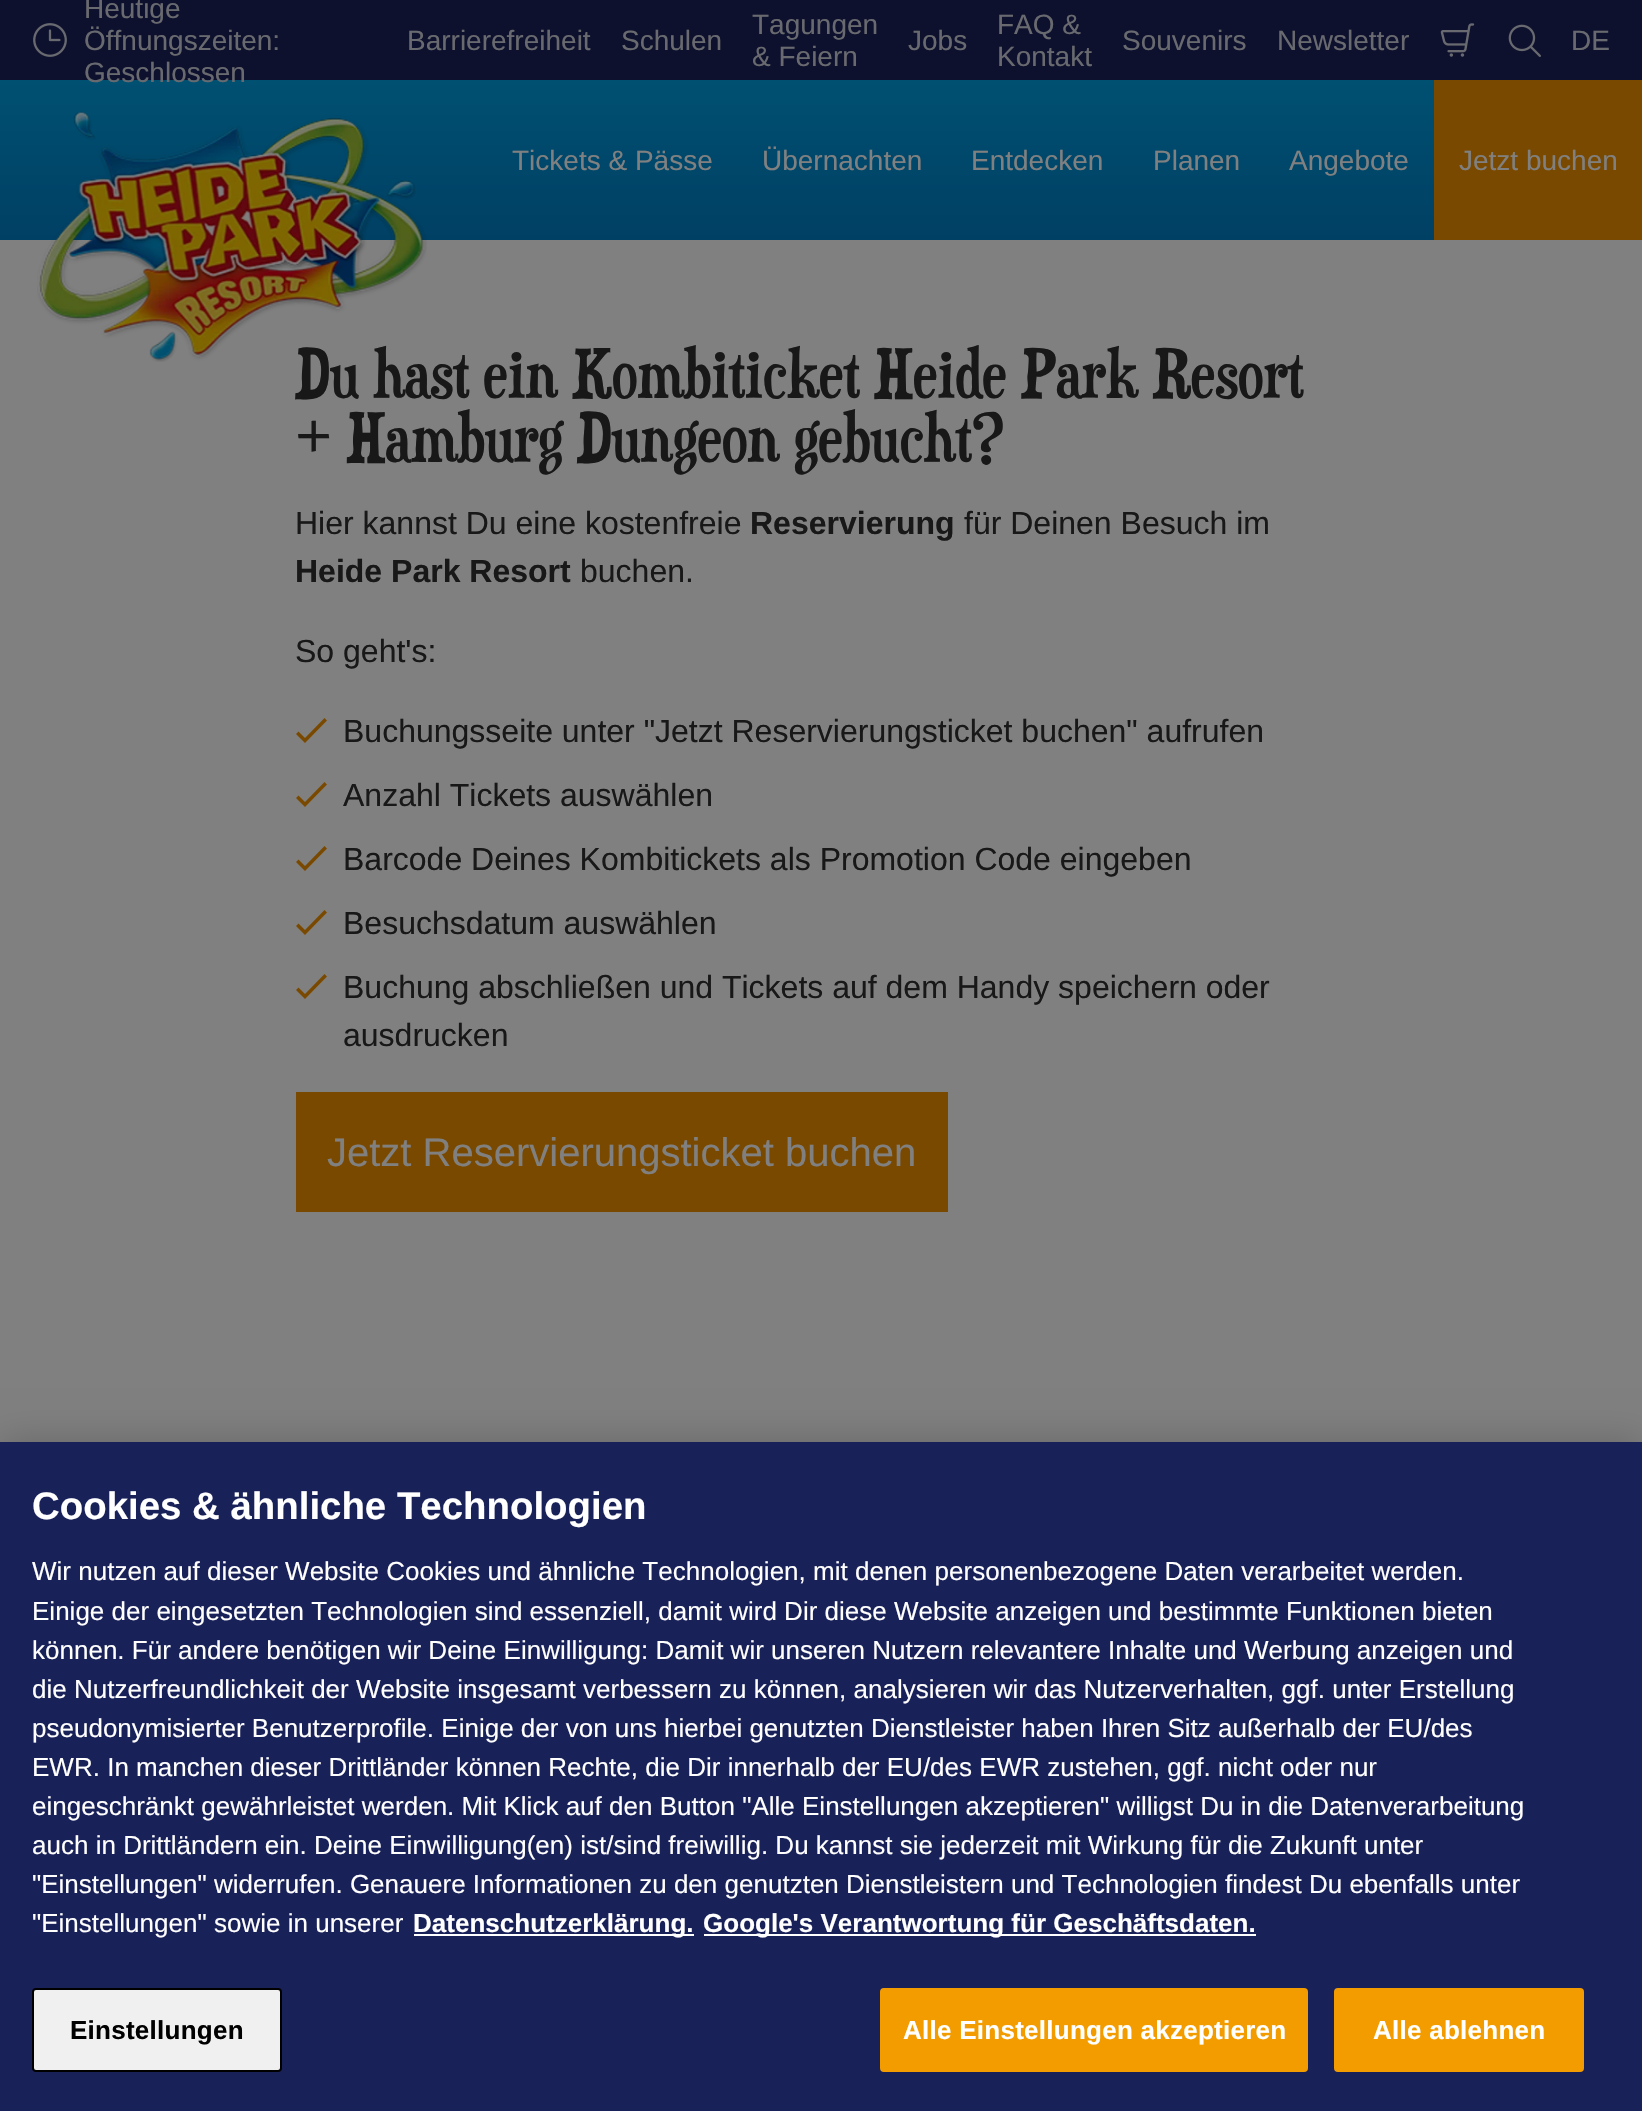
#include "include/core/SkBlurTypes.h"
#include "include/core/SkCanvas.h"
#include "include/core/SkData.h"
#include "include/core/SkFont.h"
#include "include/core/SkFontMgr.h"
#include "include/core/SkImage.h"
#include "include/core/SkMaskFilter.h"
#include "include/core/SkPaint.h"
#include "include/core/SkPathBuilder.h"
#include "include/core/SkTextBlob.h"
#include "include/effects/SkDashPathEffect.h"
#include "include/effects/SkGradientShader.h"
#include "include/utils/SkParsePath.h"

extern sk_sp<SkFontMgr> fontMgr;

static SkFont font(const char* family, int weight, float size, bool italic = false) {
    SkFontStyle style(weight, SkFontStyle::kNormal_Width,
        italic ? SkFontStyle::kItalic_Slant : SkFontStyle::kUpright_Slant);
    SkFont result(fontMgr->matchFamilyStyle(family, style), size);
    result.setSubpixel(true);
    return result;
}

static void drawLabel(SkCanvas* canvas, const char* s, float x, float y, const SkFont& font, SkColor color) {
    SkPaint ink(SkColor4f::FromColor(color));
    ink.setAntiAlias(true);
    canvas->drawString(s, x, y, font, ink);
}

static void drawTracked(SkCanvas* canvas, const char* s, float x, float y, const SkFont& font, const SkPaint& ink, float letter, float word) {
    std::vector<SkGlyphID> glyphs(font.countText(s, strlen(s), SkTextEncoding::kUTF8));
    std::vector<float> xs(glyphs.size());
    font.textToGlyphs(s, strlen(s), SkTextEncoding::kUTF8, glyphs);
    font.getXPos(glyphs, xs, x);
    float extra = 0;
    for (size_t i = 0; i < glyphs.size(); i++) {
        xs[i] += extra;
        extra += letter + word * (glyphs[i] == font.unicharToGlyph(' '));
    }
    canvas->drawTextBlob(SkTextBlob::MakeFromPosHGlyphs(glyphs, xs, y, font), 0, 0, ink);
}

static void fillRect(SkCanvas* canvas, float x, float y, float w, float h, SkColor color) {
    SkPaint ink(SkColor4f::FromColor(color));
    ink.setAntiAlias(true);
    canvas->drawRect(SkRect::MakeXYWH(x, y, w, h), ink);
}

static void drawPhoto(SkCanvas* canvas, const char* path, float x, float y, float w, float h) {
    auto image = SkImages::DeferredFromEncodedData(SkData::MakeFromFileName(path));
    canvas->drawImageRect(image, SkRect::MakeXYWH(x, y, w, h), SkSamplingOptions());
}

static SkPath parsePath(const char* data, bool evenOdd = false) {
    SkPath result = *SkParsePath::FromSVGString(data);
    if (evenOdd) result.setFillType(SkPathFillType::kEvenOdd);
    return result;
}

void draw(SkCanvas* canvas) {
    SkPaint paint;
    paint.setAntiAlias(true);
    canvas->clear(0xFF808080);
    fillRect(canvas, 0, 0, 1642, 80, 0xFF0D112D);
    drawPhoto(canvas, "assets/img1.png", 33, 23, 34, 34);
    SkFont font1 = font("Liberation Sans", 400, 28);
    drawLabel(canvas, "Heutige", 84, 18, font1, 0xFF696A6F);
    drawLabel(canvas, "Öffnungszeiten:", 84, 50, font1, 0xFF696A6F);
    {
        const SkColor colors[] = {0xFF004064, 0xFF005072};
        const float stops[] = {0, 1};
        const SkPoint ends[] = {{821, 240}, {821, 80}};
        paint.setShader(SkGradientShader::MakeLinear(ends, colors, stops, 2, SkTileMode::kClamp));
        paint.setAlpha(255);
    }
    canvas->drawRect(SkRect::MakeXYWH(0, 80, 1434, 160), paint);
    drawLabel(canvas, "Geschlossen", 84, 82, font1, 0xFF696A6F);
    drawLabel(canvas, "Barrierefreiheit", 407, 50, font1, 0xFF696A6F);
    drawLabel(canvas, "Schulen", 621, 50, font1, 0xFF696A6F);
    drawLabel(canvas, "Tagungen", 752, 34, font1, 0xFF696A6F);
    drawLabel(canvas, "& Feiern", 752, 66, font1, 0xFF696A6F);
    drawLabel(canvas, "Jobs", 908, 50, font1, 0xFF696A6F);
    drawLabel(canvas, "FAQ &", 997, 34, font1, 0xFF696A6F);
    drawLabel(canvas, "Kontakt", 997, 66, font1, 0xFF696A6F);
    drawLabel(canvas, "Souvenirs", 1122, 50, font1, 0xFF696A6F);
    drawLabel(canvas, "Newsletter", 1277, 50, font1, 0xFF696A6F);
    drawPhoto(canvas, "assets/img2.png", 1440, 23, 35, 34);
    drawPhoto(canvas, "assets/img3.png", 1508, 24, 33, 33);
    drawLabel(canvas, "DE", 1571, 50, font1, 0xFF696A6F);
    SkFont font2 = font("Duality", 400, 64);
    drawLabel(canvas, "Du hast ein Kombiticket Heide Park Resort", 295, 398, font2, 0xFF181818);
    drawPhoto(canvas, "assets/img4.png", 37, 111, 390, 251);
    drawLabel(canvas, "Tickets & Pässe", 512, 170, font1, 0xFF808080);
    drawLabel(canvas, "Übernachten", 762, 170, font1, 0xFF808080);
    drawLabel(canvas, "Entdecken", 971, 170, font1, 0xFF808080);
    drawLabel(canvas, "Planen", 1153, 170, font1, 0xFF808080);
    drawLabel(canvas, "Angebote", 1289, 170, font1, 0xFF808080);
    fillRect(canvas, 1434, 80, 208, 160, 0xFF7A4900);
    drawLabel(canvas, "Jetzt buchen", 1459, 170, font1, 0xFF808080);
    drawLabel(canvas, "+ Hamburg Dungeon gebucht?", 295, 462, font2, 0xFF181818);
    SkFont font3 = font("Liberation Sans", 400, 32);
    drawLabel(canvas, "Hier kannst Du eine kostenfreie", 295, 534, font3, 0xFF181818);
    SkFont font4 = font("Liberation Sans", 700, 32);
    drawLabel(canvas, "Reservierung", 750, 534, font4, 0xFF181818);
    drawLabel(canvas, "für Deinen Besuch im", 964, 534, font3, 0xFF181818);
    drawLabel(canvas, "Heide Park Resort", 295, 582, font4, 0xFF181818);
    drawLabel(canvas, "buchen.", 580, 582, font3, 0xFF181818);
    drawLabel(canvas, "So geht's:", 295, 662, font3, 0xFF181818);
    paint.setShader(nullptr);
    paint.setColor(0xFF7A4900);
    canvas->drawPath(parsePath("M324.5 718L327 720.5L305 743L296 734L298.5 731.5L305 738Z", true), paint);
    drawLabel(canvas, "Buchungsseite unter \"Jetzt Reservierungsticket buchen\" aufrufen", 343, 742, font3, 0xFF181818);
    canvas->drawPath(parsePath("M324.5 782L327 784.5L305 807L296 798L298.5 795.5L305 802Z", true), paint);
    drawLabel(canvas, "Anzahl Tickets auswählen", 343, 806, font3, 0xFF181818);
    canvas->drawPath(parsePath("M324.5 846L327 848.5L305 871L296 862L298.5 859.5L305 866Z", true), paint);
    drawLabel(canvas, "Barcode Deines Kombitickets als Promotion Code eingeben", 343, 870, font3, 0xFF181818);
    canvas->drawPath(parsePath("M324.5 910L327 912.5L305 935L296 926L298.5 923.5L305 930Z", true), paint);
    drawLabel(canvas, "Besuchsdatum auswählen", 343, 934, font3, 0xFF181818);
    canvas->drawPath(parsePath("M324.5 974L327 976.5L305 999L296 990L298.5 987.5L305 994Z", true), paint);
    drawLabel(canvas, "Buchung abschließen und Tickets auf dem Handy speichern oder", 343, 998, font3, 0xFF181818);
    drawLabel(canvas, "ausdrucken", 343, 1046, font3, 0xFF181818);
    fillRect(canvas, 296, 1092, 652, 120, 0xFF7A4900);
    SkFont font5 = font("Liberation Sans", 400, 40);
    drawLabel(canvas, "Jetzt Reservierungsticket buchen", 327, 1166, font5, 0xFF808080);
    paint.setColor(0x33000000);
    paint.setMaskFilter(SkMaskFilter::MakeBlur(kNormal_SkBlurStyle, 18));
    canvas->drawRect(SkRect::MakeXYWH(0, 1442, 1642, 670), paint);
    paint.setMaskFilter(nullptr);
    fillRect(canvas, 0, 1442, 1642, 669, 0xFF192159);
    SkFont font6 = font("Liberation Sans", 700, 38.4f);
    drawLabel(canvas, "Cookies & ähnliche Technologien", 32, 1519, font6, 0xFFFFFFFF);
    SkFont font7 = font("Liberation Sans", 400, 26.02f);
    drawLabel(canvas, "Wir nutzen auf dieser Website Cookies und ähnliche Technologien, mit denen personenbezogene Daten verarbeitet werden.", 32, 1580, font7, 0xFFFFFFFF);
    drawLabel(canvas, "Einige der eingesetzten Technologien sind essenziell, damit wird Dir diese Website anzeigen und bestimmte Funktionen bieten", 32, 1620, font7, 0xFFFFFFFF);
    drawLabel(canvas, "können. Für andere benötigen wir Deine Einwilligung: Damit wir unseren Nutzern relevantere Inhalte und Werbung anzeigen und", 32, 1659, font7, 0xFFFFFFFF);
    drawLabel(canvas, "die Nutzerfreundlichkeit der Website insgesamt verbessern zu können, analysieren wir das Nutzerverhalten, ggf. unter Erstellung", 32, 1698, font7, 0xFFFFFFFF);
    drawLabel(canvas, "pseudonymisierter Benutzerprofile. Einige der von uns hierbei genutzten Dienstleister haben Ihren Sitz außerhalb der EU/des", 32, 1737, font7, 0xFFFFFFFF);
    drawLabel(canvas, "EWR. In manchen dieser Drittländer können Rechte, die Dir innerhalb der EU/des EWR zustehen, ggf. nicht oder nur", 32, 1776, font7, 0xFFFFFFFF);
    drawLabel(canvas, "eingeschränkt gewährleistet werden. Mit Klick auf den Button \"Alle Einstellungen akzeptieren\" willigst Du in die Datenverarbeitung", 32, 1815, font7, 0xFFFFFFFF);
    drawLabel(canvas, "auch in Drittländern ein. Deine Einwilligung(en) ist/sind freiwillig. Du kannst sie jederzeit mit Wirkung für die Zukunft unter", 32, 1854, font7, 0xFFFFFFFF);
    drawLabel(canvas, "\"Einstellungen\" widerrufen. Genauere Informationen zu den genutzten Dienstleistern und Technologien findest Du ebenfalls unter", 32, 1893, font7, 0xFFFFFFFF);
    drawLabel(canvas, "\"Einstellungen\" sowie in unserer", 32, 1932, font7, 0xFFFFFFFF);
    fillRect(canvas, 414, 1934, 280, 2, 0xFFFFFFFF);
    SkFont font8 = font("Liberation Sans", 700, 26.02f);
    drawLabel(canvas, "Datenschutzerklärung.", 413, 1932, font8, 0xFFFFFFFF);
    fillRect(canvas, 704, 1934, 552, 2, 0xFFFFFFFF);
    drawLabel(canvas, "Google's Verantwortung für Geschäftsdaten.", 703, 1932, font8, 0xFFFFFFFF);
    paint.setColor(0xFFF0F0F0);
    canvas->drawRoundRect(SkRect::MakeXYWH(33, 1989, 248, 82), 3, 3, paint);
    paint.setStroke(true);
    paint.setStrokeWidth(2);
    paint.setColor(0xFF000000);
    canvas->drawRoundRect(SkRect::MakeXYWH(33, 1989, 248, 82), 3, 3, paint);
    paint.setStroke(false);
    drawTracked(canvas, "Einstellungen", 70, 2039, font8, paint, 0.25f, 0);
    paint.setColor(0xFFF39C00);
    canvas->drawRoundRect(SkRect::MakeXYWH(881, 1989, 426, 82), 3, 3, paint);
    paint.setStroke(true);
    canvas->drawRoundRect(SkRect::MakeXYWH(881, 1989, 426, 82), 3, 3, paint);
    paint.setStroke(false);
    paint.setColor(0xFFFFFFFF);
    drawTracked(canvas, "Alle Einstellungen akzeptieren", 903, 2039, font8, paint, 0.25f, 0);
    paint.setColor(0xFFF39C00);
    canvas->drawRoundRect(SkRect::MakeXYWH(1335, 1989, 248, 82), 3, 3, paint);
    paint.setStroke(true);
    canvas->drawRoundRect(SkRect::MakeXYWH(1335, 1989, 248, 82), 3, 3, paint);
    paint.setStroke(false);
    paint.setColor(0xFFFFFFFF);
    drawTracked(canvas, "Alle ablehnen", 1373, 2039, font8, paint, 0.25f, 0);
}
